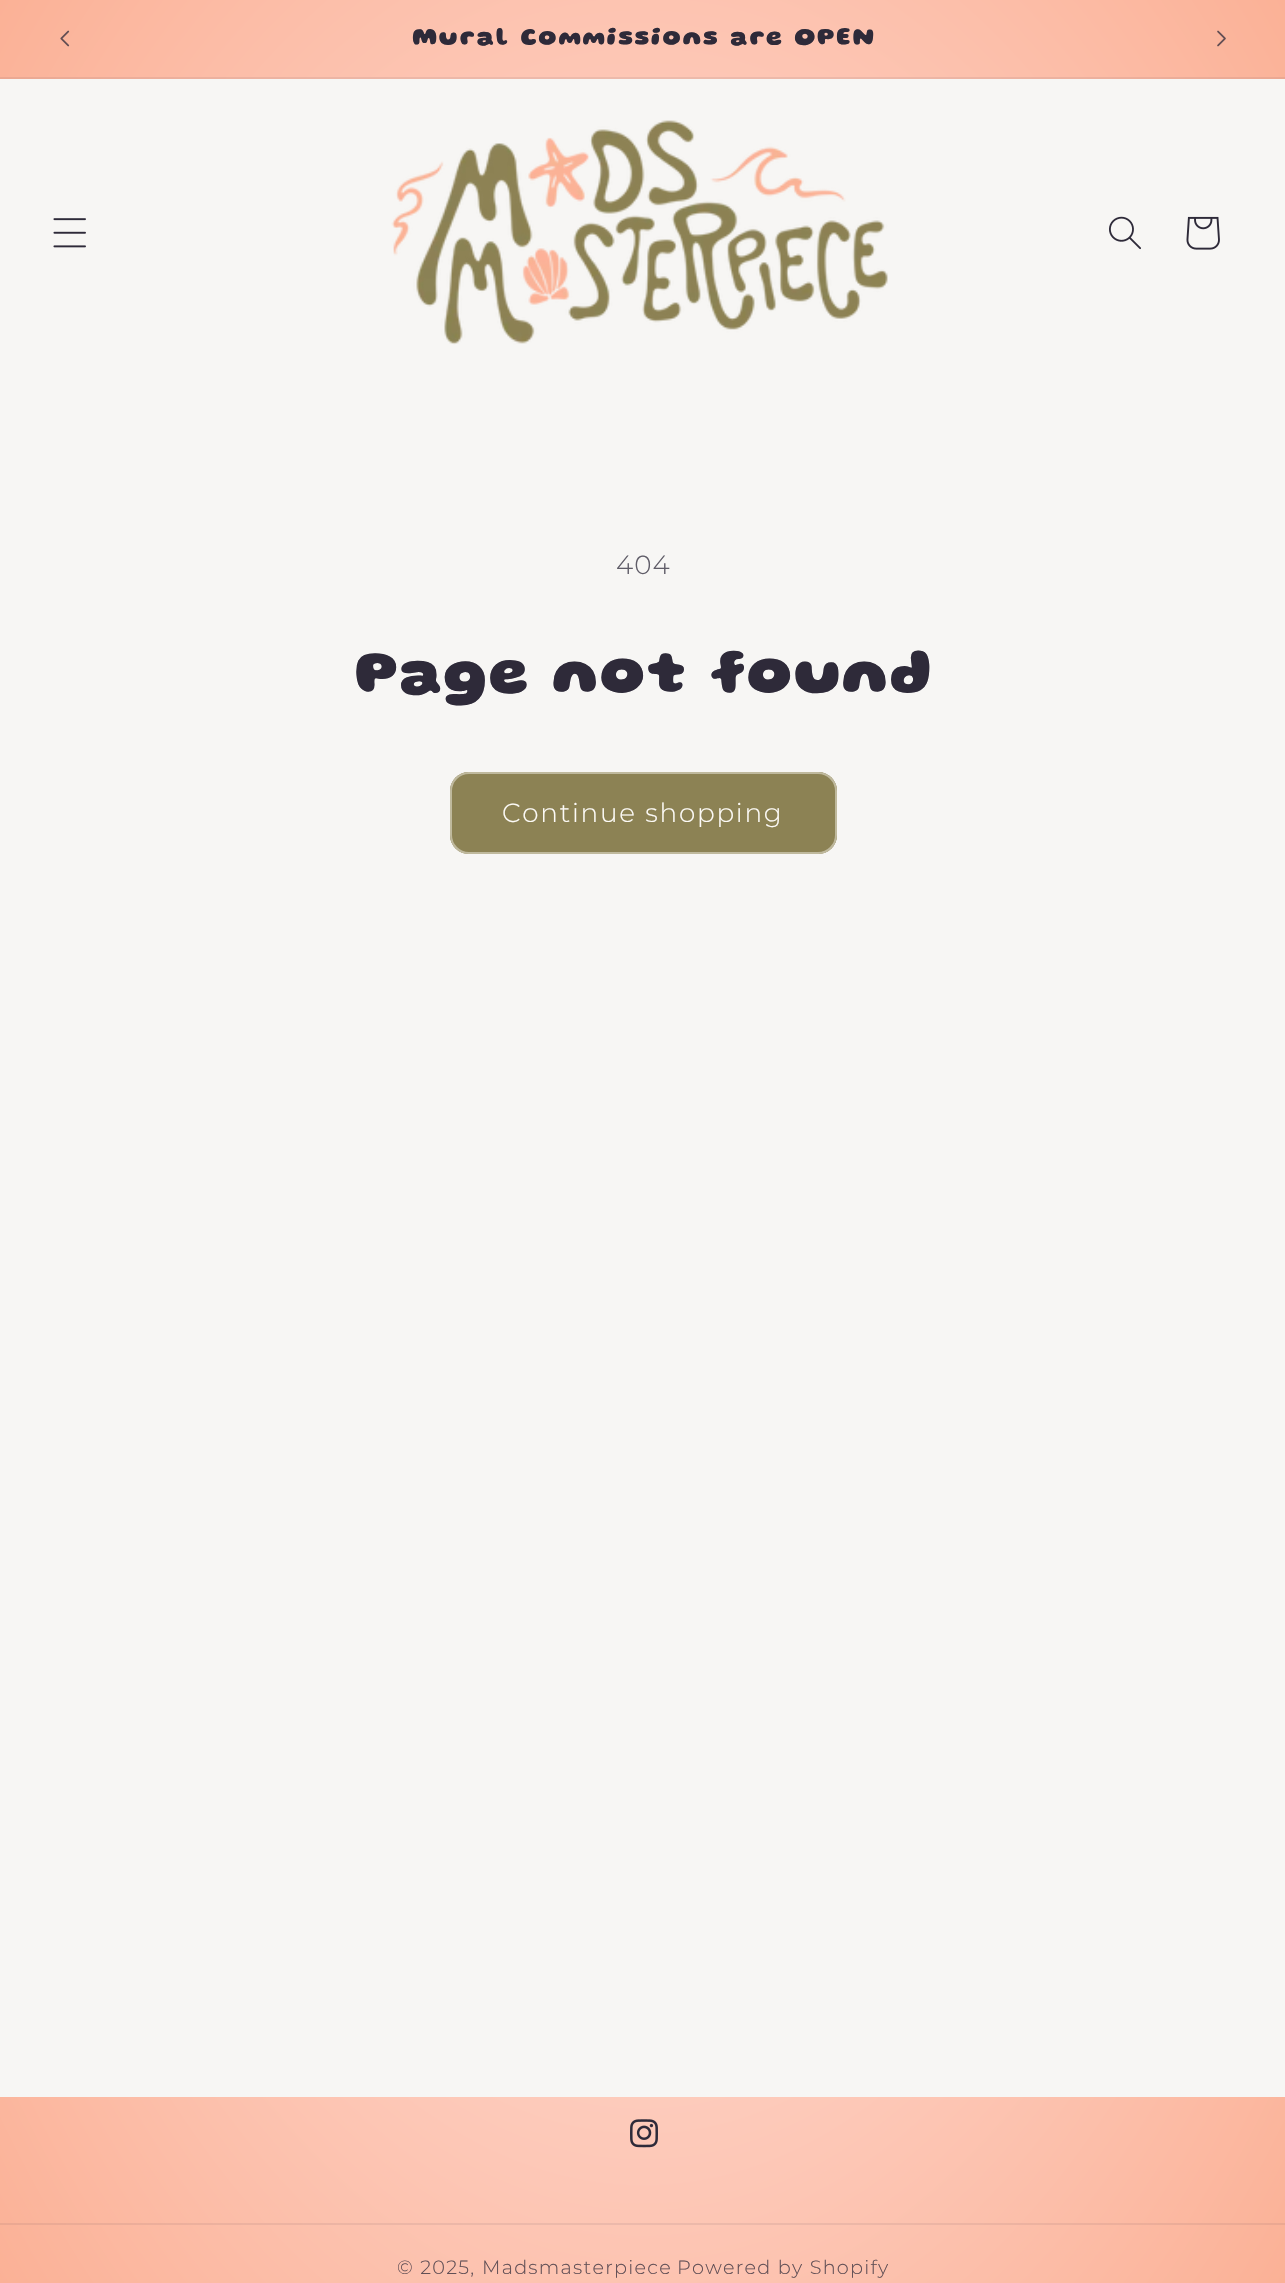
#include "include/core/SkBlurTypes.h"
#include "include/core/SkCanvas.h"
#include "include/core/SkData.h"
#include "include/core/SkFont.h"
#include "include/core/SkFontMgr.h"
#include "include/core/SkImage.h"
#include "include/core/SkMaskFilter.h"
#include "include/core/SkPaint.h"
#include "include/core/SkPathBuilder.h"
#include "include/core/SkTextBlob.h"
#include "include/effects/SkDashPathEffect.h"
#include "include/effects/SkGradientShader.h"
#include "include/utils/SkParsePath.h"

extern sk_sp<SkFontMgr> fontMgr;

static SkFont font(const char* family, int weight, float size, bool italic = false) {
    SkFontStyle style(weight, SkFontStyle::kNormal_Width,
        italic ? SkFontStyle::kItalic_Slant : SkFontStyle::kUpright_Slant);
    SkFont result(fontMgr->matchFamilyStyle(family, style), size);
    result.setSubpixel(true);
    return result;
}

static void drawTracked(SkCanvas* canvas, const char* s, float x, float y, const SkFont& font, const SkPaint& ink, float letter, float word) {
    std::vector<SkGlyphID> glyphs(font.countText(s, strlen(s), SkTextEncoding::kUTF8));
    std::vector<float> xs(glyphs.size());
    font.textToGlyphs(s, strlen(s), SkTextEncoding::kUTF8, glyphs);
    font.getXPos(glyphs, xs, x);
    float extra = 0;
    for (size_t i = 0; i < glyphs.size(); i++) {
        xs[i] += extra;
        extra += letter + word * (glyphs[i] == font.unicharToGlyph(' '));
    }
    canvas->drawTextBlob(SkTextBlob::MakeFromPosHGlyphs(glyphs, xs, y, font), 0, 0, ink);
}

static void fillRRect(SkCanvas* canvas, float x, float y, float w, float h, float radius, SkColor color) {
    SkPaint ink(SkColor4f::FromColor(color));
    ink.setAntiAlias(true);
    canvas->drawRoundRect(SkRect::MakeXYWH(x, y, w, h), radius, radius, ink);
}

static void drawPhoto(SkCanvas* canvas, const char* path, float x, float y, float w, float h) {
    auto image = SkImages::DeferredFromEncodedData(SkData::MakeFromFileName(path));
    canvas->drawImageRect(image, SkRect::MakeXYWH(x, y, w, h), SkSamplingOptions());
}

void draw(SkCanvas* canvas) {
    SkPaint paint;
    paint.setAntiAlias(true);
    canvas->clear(0xFFF7F6F4);
    {
        const SkColor colors[] = {0xFFF2EBD9, 0xFFFFE0DA, 0xFFFBB196};
        const float stops[] = {0, 0.26f, 1};
        SkMatrix m = SkMatrix::Translate(643, 1142).preScale(910, 1615);
        paint.setShader(SkGradientShader::MakeRadial({0, 0}, 1, colors, stops, 3, SkTileMode::kClamp, 0, &m));
        paint.setAlpha(255);
    }
    canvas->drawRect(SkRect::MakeXYWH(0, 0, 1285, 77), paint);
    {
        const SkColor colors[] = {0xFFE2DCCC, 0xFFEED1CD, 0xFFEBA68F};
        const float stops[] = {0, 0.26f, 1};
        SkMatrix m = SkMatrix::Translate(643, 1142).preScale(910, 1615);
        paint.setShader(SkGradientShader::MakeRadial({0, 0}, 1, colors, stops, 3, SkTileMode::kClamp, 0, &m));
        paint.setAlpha(255);
    }
    canvas->drawRect(SkRect::MakeXYWH(0, 77, 1285, 2), paint);
    drawPhoto(canvas, "assets/img1.png", 60, 30, 10, 17);
    SkFont font1 = font("Gluten", 800, 25.25f);
    paint.setShader(nullptr);
    paint.setColor(0xFF2E2A39);
    drawTracked(canvas, "Mural Commissions are OPEN", 412, 44, font1, paint, 1.75f, 0);
    drawPhoto(canvas, "assets/img2.png", 1217, 30, 9, 17);
    drawPhoto(canvas, "assets/img3.png", 53, 218, 33, 30);
    drawPhoto(canvas, "assets/img4.png", 391, 120, 497, 225);
    drawPhoto(canvas, "assets/img5.png", 1109, 216, 32, 34);
    drawPhoto(canvas, "assets/img6.png", 1186, 216, 34, 34);
    SkFont font2 = font("Montserrat", 300, 26.25f);
    paint.setColor(0xFF605D68);
    drawTracked(canvas, "404", 616, 574, font2, paint, 1, 0);
    SkFont font3 = font("Gluten", 800, 63);
    paint.setColor(0xFF2E2A39);
    drawTracked(canvas, "Page not found", 354, 691, font3, paint, 1.25f, 0);
    fillRRect(canvas, 450, 772, 387, 82, 19, 0xFF8C8254);
    paint.setStroke(true);
    paint.setStrokeWidth(2);
    paint.setColor(0xFF8C8254);
    canvas->drawRoundRect(SkRect::MakeXYWH(451, 773, 385, 80), 18, 18, paint);
    paint.setColor(0x73FDFBF7);
    canvas->drawRoundRect(SkRect::MakeXYWH(451, 773, 385, 80), 18, 18, paint);
    paint.setStroke(false);
    paint.setColor(0xFFFDFBF7);
    drawTracked(canvas, "Continue shopping", 502, 822, font2, paint, 1.75f, 0);
    {
        const SkColor colors[] = {0xFFF2EBD9, 0xFFFFE0DA, 0xFFFBB196};
        const float stops[] = {0, 0.26f, 1};
        SkMatrix m = SkMatrix::Translate(643, 1142).preScale(910, 1615);
        paint.setShader(SkGradientShader::MakeRadial({0, 0}, 1, colors, stops, 3, SkTileMode::kClamp, 0, &m));
        paint.setAlpha(255);
    }
    canvas->drawRect(SkRect::MakeXYWH(0, 2097, 1285, 186), paint);
    {
        const SkColor colors[] = {0xFFE2DCCC, 0xFFEED1CD, 0xFFEBA68F};
        const float stops[] = {0, 0.26f, 1};
        SkMatrix m = SkMatrix::Translate(643, 1142).preScale(910, 1615);
        paint.setShader(SkGradientShader::MakeRadial({0, 0}, 1, colors, stops, 3, SkTileMode::kClamp, 0, &m));
        paint.setAlpha(255);
    }
    canvas->drawRect(SkRect::MakeXYWH(0, 2223, 1285, 2), paint);
    drawPhoto(canvas, "assets/img7.png", 630, 2119, 28, 29);
    SkFont font4 = font("Montserrat", 300, 19.25f);
    paint.setShader(nullptr);
    paint.setColor(0xFF625056);
    drawTracked(canvas, "© 2025,", 397, 2274, font4, paint, 1.25f, 0);
    drawTracked(canvas, "Madsmasterpiece", 482, 2274, font4, paint, 1.25f, 0);
    drawTracked(canvas, "Powered by Shopify", 677, 2274, font4, paint, 1.25f, 0);
}
